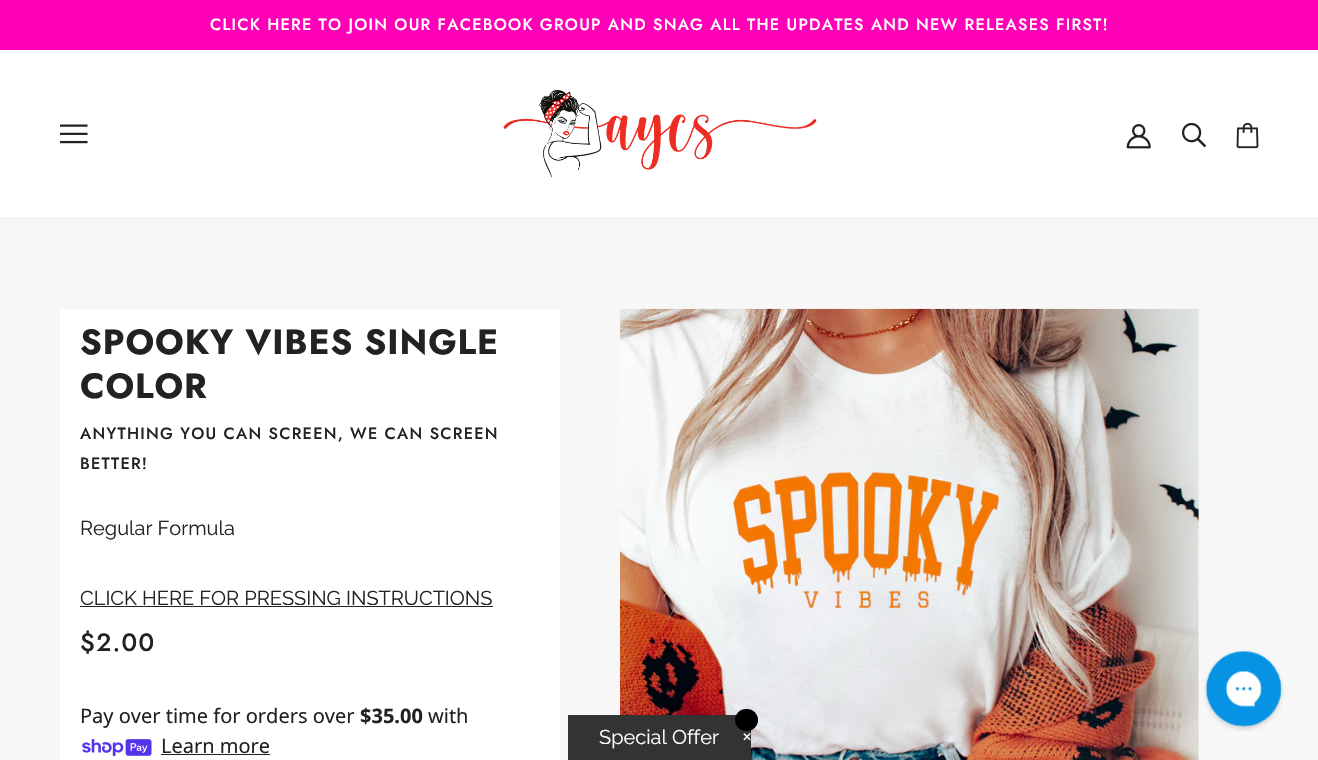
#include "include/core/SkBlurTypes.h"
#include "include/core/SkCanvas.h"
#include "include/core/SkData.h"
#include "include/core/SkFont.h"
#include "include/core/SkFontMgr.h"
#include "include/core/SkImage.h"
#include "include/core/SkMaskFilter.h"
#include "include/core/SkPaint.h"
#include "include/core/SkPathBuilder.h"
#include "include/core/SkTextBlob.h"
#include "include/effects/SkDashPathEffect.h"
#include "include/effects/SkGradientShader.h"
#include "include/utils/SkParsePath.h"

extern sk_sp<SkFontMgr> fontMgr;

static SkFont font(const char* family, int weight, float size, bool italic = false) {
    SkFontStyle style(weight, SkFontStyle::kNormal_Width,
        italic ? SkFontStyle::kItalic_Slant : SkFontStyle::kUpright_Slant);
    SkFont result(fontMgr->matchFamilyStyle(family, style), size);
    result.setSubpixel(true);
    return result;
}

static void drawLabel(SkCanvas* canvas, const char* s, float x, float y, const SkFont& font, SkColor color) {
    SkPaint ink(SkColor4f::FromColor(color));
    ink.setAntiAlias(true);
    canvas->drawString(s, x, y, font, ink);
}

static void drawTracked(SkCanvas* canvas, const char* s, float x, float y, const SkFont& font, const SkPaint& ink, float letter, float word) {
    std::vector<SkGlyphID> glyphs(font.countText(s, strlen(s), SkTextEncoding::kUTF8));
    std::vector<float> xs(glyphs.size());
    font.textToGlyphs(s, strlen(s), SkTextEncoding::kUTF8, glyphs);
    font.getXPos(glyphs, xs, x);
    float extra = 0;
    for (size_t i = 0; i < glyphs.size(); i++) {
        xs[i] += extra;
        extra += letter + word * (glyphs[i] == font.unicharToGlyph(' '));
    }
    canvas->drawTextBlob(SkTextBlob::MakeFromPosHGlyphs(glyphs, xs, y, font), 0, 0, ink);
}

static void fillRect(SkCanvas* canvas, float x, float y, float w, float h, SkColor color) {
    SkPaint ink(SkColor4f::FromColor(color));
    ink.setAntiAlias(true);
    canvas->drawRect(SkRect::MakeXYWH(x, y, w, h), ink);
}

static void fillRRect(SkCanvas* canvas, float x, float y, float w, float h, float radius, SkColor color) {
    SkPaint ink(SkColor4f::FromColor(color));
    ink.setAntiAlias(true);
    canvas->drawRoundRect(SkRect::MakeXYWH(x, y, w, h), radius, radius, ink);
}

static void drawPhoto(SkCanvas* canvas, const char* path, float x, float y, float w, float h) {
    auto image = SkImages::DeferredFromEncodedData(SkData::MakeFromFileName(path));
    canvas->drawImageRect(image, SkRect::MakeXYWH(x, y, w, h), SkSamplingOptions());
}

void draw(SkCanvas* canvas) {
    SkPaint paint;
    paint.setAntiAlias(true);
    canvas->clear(0xFFFFFFFF);
    fillRect(canvas, 0, 0, 1318, 50, 0xFFFF00B6);
    SkFont font1 = font("Jost", 500, 16.25f);
    paint.setColor(0xFFFFFFFF);
    drawTracked(canvas, "CLICK HERE TO JOIN OUR FACEBOOK GROUP AND SNAG ALL THE UPDATES AND NEW RELEASES FIRST!", 210, 30, font1, paint, 1.25f, 0);
    fillRect(canvas, 0, 218, 1318, 1, 0xFFEAEAEA);
    drawPhoto(canvas, "assets/img1.png", 60, 124, 28, 20);
    drawPhoto(canvas, "assets/img2.png", 503, 90, 314, 88);
    drawPhoto(canvas, "assets/img3.png", 1126, 124, 25, 25);
    drawPhoto(canvas, "assets/img4.png", 1181, 123, 25, 25);
    drawPhoto(canvas, "assets/img5.png", 1236, 123, 23, 26);
    fillRect(canvas, 0, 219, 1318, 541, 0xFFF7F7F7);
    fillRect(canvas, 60, 309, 500, 451, 0xFFFFFFFF);
    SkFont font2 = font("Jost", 700, 35);
    paint.setColor(0xFF222222);
    drawTracked(canvas, "SPOOKY VIBES SINGLE", 80, 354, font2, paint, 0.9f, 0);
    drawTracked(canvas, "COLOR", 80, 398, font2, paint, 0.9f, 0);
    drawTracked(canvas, "ANYTHING YOU CAN SCREEN, WE CAN SCREEN", 80, 439, font1, paint, 1.25f, 0);
    drawTracked(canvas, "BETTER!", 80, 469, font1, paint, 1.25f, 0);
    SkFont font3 = font("Raleway", 400, 20);
    drawLabel(canvas, "Regular Formula", 80, 535, font3, 0xFF222222);
    drawLabel(canvas, "CLICK HERE FOR PRESSING INSTRUCTIONS", 80, 605, font3, 0xFF222222);
    fillRect(canvas, 80, 606, 413, 1, 0xFF222222);
    SkFont font4 = font("Jost", 500, 25);
    drawTracked(canvas, "$2.00", 80, 651, font4, paint, 1.25f, 0);
    SkFont font5 = font("Noto Sans", 400, 20);
    drawLabel(canvas, "Pay over time for orders over", 80, 723, font5, 0xFF222222);
    SkFont font6 = font("Noto Sans", 700, 20);
    drawLabel(canvas, "$35.00", 360, 723, font6, 0xFF222222);
    drawLabel(canvas, "with", 428, 723, font5, 0xFF222222);
    drawPhoto(canvas, "assets/img6.png", 82, 739, 70, 17);
    drawLabel(canvas, "Learn more", 161, 753, font5, 0xFF222222);
    fillRect(canvas, 161, 754, 109, 1, 0xFF222222);
    drawPhoto(canvas, "assets/img7.png", 620, 308, 579, 452);
    drawPhoto(canvas, "assets/img8.png", 1204, 650, 80, 81);
    fillRect(canvas, 568, 715, 183, 45, 0xFF333333);
    drawLabel(canvas, "Special Offer", 599, 744, font3, 0xFFFFFFFF);
    fillRRect(canvas, 735, 709, 23, 22, 11, 0xFF000000);
    SkFont font7 = font("DejaVu Sans", 400, 12);
    drawLabel(canvas, "✕", 742, 741, font7, 0xFFFFFFFF);
}
